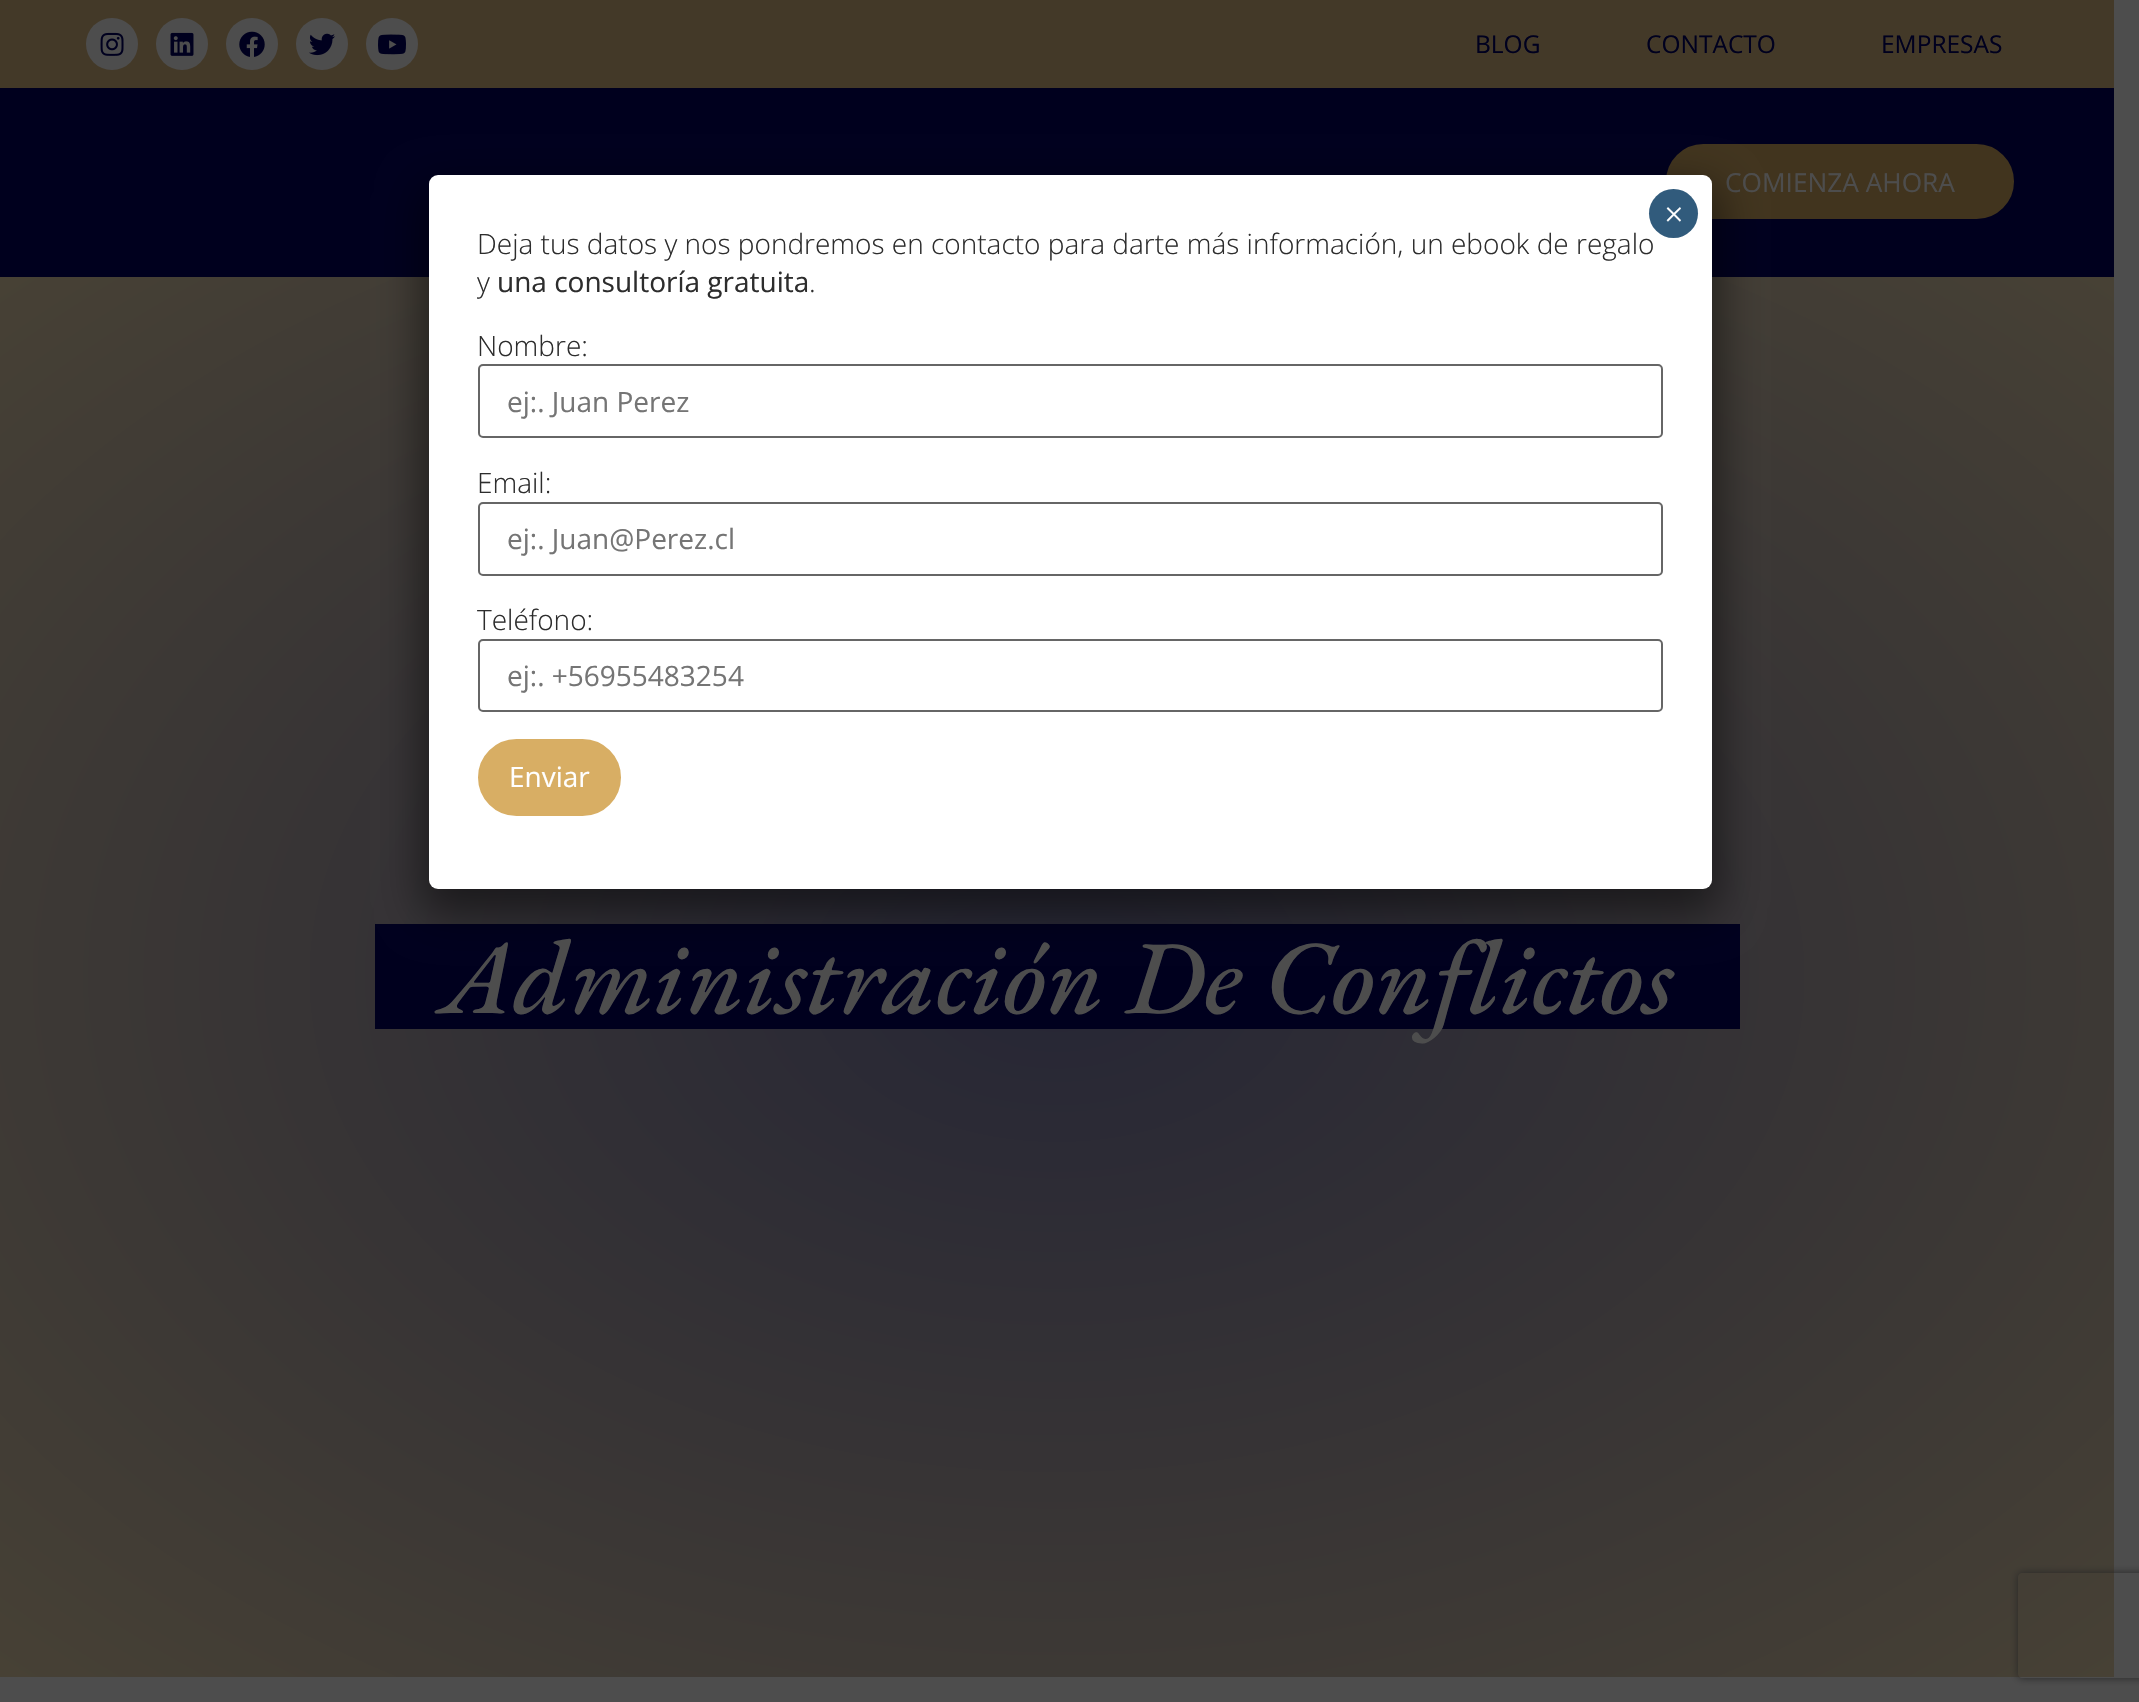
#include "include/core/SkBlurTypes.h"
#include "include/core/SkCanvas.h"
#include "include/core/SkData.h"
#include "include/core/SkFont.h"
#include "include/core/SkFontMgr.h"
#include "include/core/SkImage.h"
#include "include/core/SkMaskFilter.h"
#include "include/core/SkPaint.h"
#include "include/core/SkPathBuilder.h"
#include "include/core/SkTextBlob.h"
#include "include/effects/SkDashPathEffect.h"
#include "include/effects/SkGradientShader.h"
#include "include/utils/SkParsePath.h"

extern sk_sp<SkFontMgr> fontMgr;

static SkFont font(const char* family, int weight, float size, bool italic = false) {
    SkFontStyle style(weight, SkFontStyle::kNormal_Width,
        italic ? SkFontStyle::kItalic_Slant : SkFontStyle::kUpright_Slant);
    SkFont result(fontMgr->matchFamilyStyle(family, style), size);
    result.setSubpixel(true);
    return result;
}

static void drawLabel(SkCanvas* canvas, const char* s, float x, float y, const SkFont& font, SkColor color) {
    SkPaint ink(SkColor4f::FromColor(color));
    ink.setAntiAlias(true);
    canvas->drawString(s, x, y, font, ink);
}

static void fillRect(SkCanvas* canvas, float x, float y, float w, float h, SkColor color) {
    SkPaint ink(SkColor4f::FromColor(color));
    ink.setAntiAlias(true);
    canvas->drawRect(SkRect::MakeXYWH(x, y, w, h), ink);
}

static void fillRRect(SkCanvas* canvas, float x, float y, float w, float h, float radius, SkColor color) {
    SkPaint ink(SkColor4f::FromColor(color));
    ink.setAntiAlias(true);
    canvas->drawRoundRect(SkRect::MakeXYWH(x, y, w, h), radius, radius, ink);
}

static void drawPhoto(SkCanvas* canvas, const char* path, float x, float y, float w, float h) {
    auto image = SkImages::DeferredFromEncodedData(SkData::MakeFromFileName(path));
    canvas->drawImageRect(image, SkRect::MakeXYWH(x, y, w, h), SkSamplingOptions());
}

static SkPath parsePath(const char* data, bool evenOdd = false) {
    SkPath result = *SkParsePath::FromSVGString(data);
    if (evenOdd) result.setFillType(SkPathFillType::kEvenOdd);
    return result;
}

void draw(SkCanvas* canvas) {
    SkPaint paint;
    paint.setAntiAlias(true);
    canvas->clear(0xFF4D4D4D);
    fillRect(canvas, 0, 0, 2114, 88, 0xFF433928);
    paint.setColor(0xFF4D4D4D);
    canvas->drawCircle(112, 44, 26, paint);
    drawPhoto(canvas, "assets/img1.png", 100, 32, 24, 24);
    canvas->drawCircle(182, 44, 26, paint);
    drawPhoto(canvas, "assets/img2.png", 170, 32, 24, 24);
    canvas->drawCircle(252, 44, 26, paint);
    drawPhoto(canvas, "assets/img3.png", 239, 31, 26, 26);
    canvas->drawCircle(322, 44, 26, paint);
    drawPhoto(canvas, "assets/img4.png", 309, 33, 26, 23);
    canvas->drawCircle(392, 44, 26, paint);
    drawPhoto(canvas, "assets/img5.png", 378, 34, 28, 21);
    SkFont font1 = font("Open Sans", 400, 24.5f);
    drawLabel(canvas, "BLOG", 1475, 53, font1, 0xFF00001E);
    drawLabel(canvas, "CONTACTO", 1646, 53, font1, 0xFF00001E);
    drawLabel(canvas, "EMPRESAS", 1881, 53, font1, 0xFF00001E);
    fillRect(canvas, 0, 88, 2114, 189, 0xFF00001E);
    paint.setColor(0xFF41341E);
    canvas->drawRoundRect(SkRect::MakeXYWH(1668, 146, 344, 71), 35.5f, 35.5f, paint);
    paint.setStroke(true);
    paint.setStrokeWidth(4);
    canvas->drawRoundRect(SkRect::MakeXYWH(1668, 146, 344, 71), 35.5f, 35.5f, paint);
    SkFont font2 = font("Open Sans", 400, 26.25f);
    drawLabel(canvas, "COMIENZA AHORA", 1725, 192, font2, 0xFF4D4D4D);
    paint.setStroke(false);
    {
        const SkColor colors[] = {0xFF262635, 0xFF474135};
        const float stops[] = {0, 1};
        SkMatrix m = SkMatrix::Translate(1057, 977).preScale(1495, 990);
        paint.setShader(SkGradientShader::MakeRadial({0, 0}, 1, colors, stops, 2, SkTileMode::kClamp, 0, &m));
        paint.setAlpha(255);
    }
    canvas->drawRect(SkRect::MakeXYWH(0, 277, 2114, 1400), paint);
    fillRect(canvas, 375, 924, 1365, 105, 0xFF00001E);
    paint.setShader(nullptr);
    paint.setColor(0x80020202);
    paint.setMaskFilter(SkMaskFilter::MakeBlur(kNormal_SkBlurStyle, 22));
    canvas->drawRoundRect(SkRect::MakeXYWH(422, 186, 1297, 728), 16, 16, paint);
    paint.setMaskFilter(nullptr);
    fillRRect(canvas, 429, 175, 1283, 714, 9, 0xFFFFFFFF);
    SkFont font3 = font("Open Sans", 300, 28);
    drawLabel(canvas, "Deja tus datos y nos pondremos en contacto para darte más información, un ebook de regalo", 477, 254, font3, 0xFF2D2D2D);
    paint.setColor(0xFF315B7C);
    canvas->drawCircle(1673.5f, 213.5f, 24.5f, paint);
    SkFont font4 = font("Liberation Serif", 400, 35);
    drawLabel(canvas, "×", 1664, 226, font4, 0xFFFFFFFF);
    drawLabel(canvas, "y", 477, 292, font3, 0xFF2D2D2D);
    SkFont font5 = font("Open Sans", 400, 28);
    drawLabel(canvas, "una consultoría gratuita", 497, 292, font5, 0xFF2D2D2D);
    drawLabel(canvas, ".", 809, 292, font3, 0xFF2D2D2D);
    drawLabel(canvas, "Nombre:", 477, 356, font3, 0xFF2D2D2D);
    paint.setStroke(true);
    paint.setStrokeWidth(2);
    paint.setColor(0xFF666666);
    canvas->drawRoundRect(SkRect::MakeXYWH(479, 365, 1183, 72), 4, 4, paint);
    drawLabel(canvas, "ej:. Juan Perez", 507, 412, font5, 0xFF757575);
    drawLabel(canvas, "Email:", 477, 493, font3, 0xFF2D2D2D);
    canvas->drawRoundRect(SkRect::MakeXYWH(479, 503, 1183, 72), 4, 4, paint);
    drawLabel(canvas, "ej:. Juan@Perez.cl", 507, 549, font5, 0xFF757575);
    drawLabel(canvas, "Teléfono:", 477, 630, font3, 0xFF2D2D2D);
    canvas->drawRoundRect(SkRect::MakeXYWH(479, 640, 1183, 71), 4, 4, paint);
    drawLabel(canvas, "ej:. +56955483254", 507, 686, font5, 0xFF757575);
    paint.setStroke(false);
    paint.setColor(0xFFD8AE64);
    canvas->drawRoundRect(SkRect::MakeXYWH(480, 741, 139, 73), 36.5f, 36.5f, paint);
    paint.setStroke(true);
    paint.setStrokeWidth(4);
    canvas->drawRoundRect(SkRect::MakeXYWH(480, 741, 139, 73), 36.5f, 36.5f, paint);
    drawLabel(canvas, "Enviar", 509, 787, font5, 0xFFFFFFFF);
    SkFont font6 = font("EB Garamond", 500, 105, true);
    drawLabel(canvas, "Administración De Conflictos", 441, 1013, font6, 0xFF4D4D4D);
    canvas->save();
    canvas->clipPath(parsePath("M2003 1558H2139V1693H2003ZM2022 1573H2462C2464 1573 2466 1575 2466 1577V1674C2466 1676 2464 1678 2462 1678H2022C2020 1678 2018 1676 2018 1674V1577C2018 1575 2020 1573 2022 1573Z", true), true);
    paint.setStroke(false);
    paint.setColor(0xFF262626);
    paint.setMaskFilter(SkMaskFilter::MakeBlur(kNormal_SkBlurStyle, 4.5f));
    canvas->drawRoundRect(SkRect::MakeXYWH(2018, 1573, 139, 105), 4, 4, paint);
    paint.setMaskFilter(nullptr);
    canvas->restore();
}
